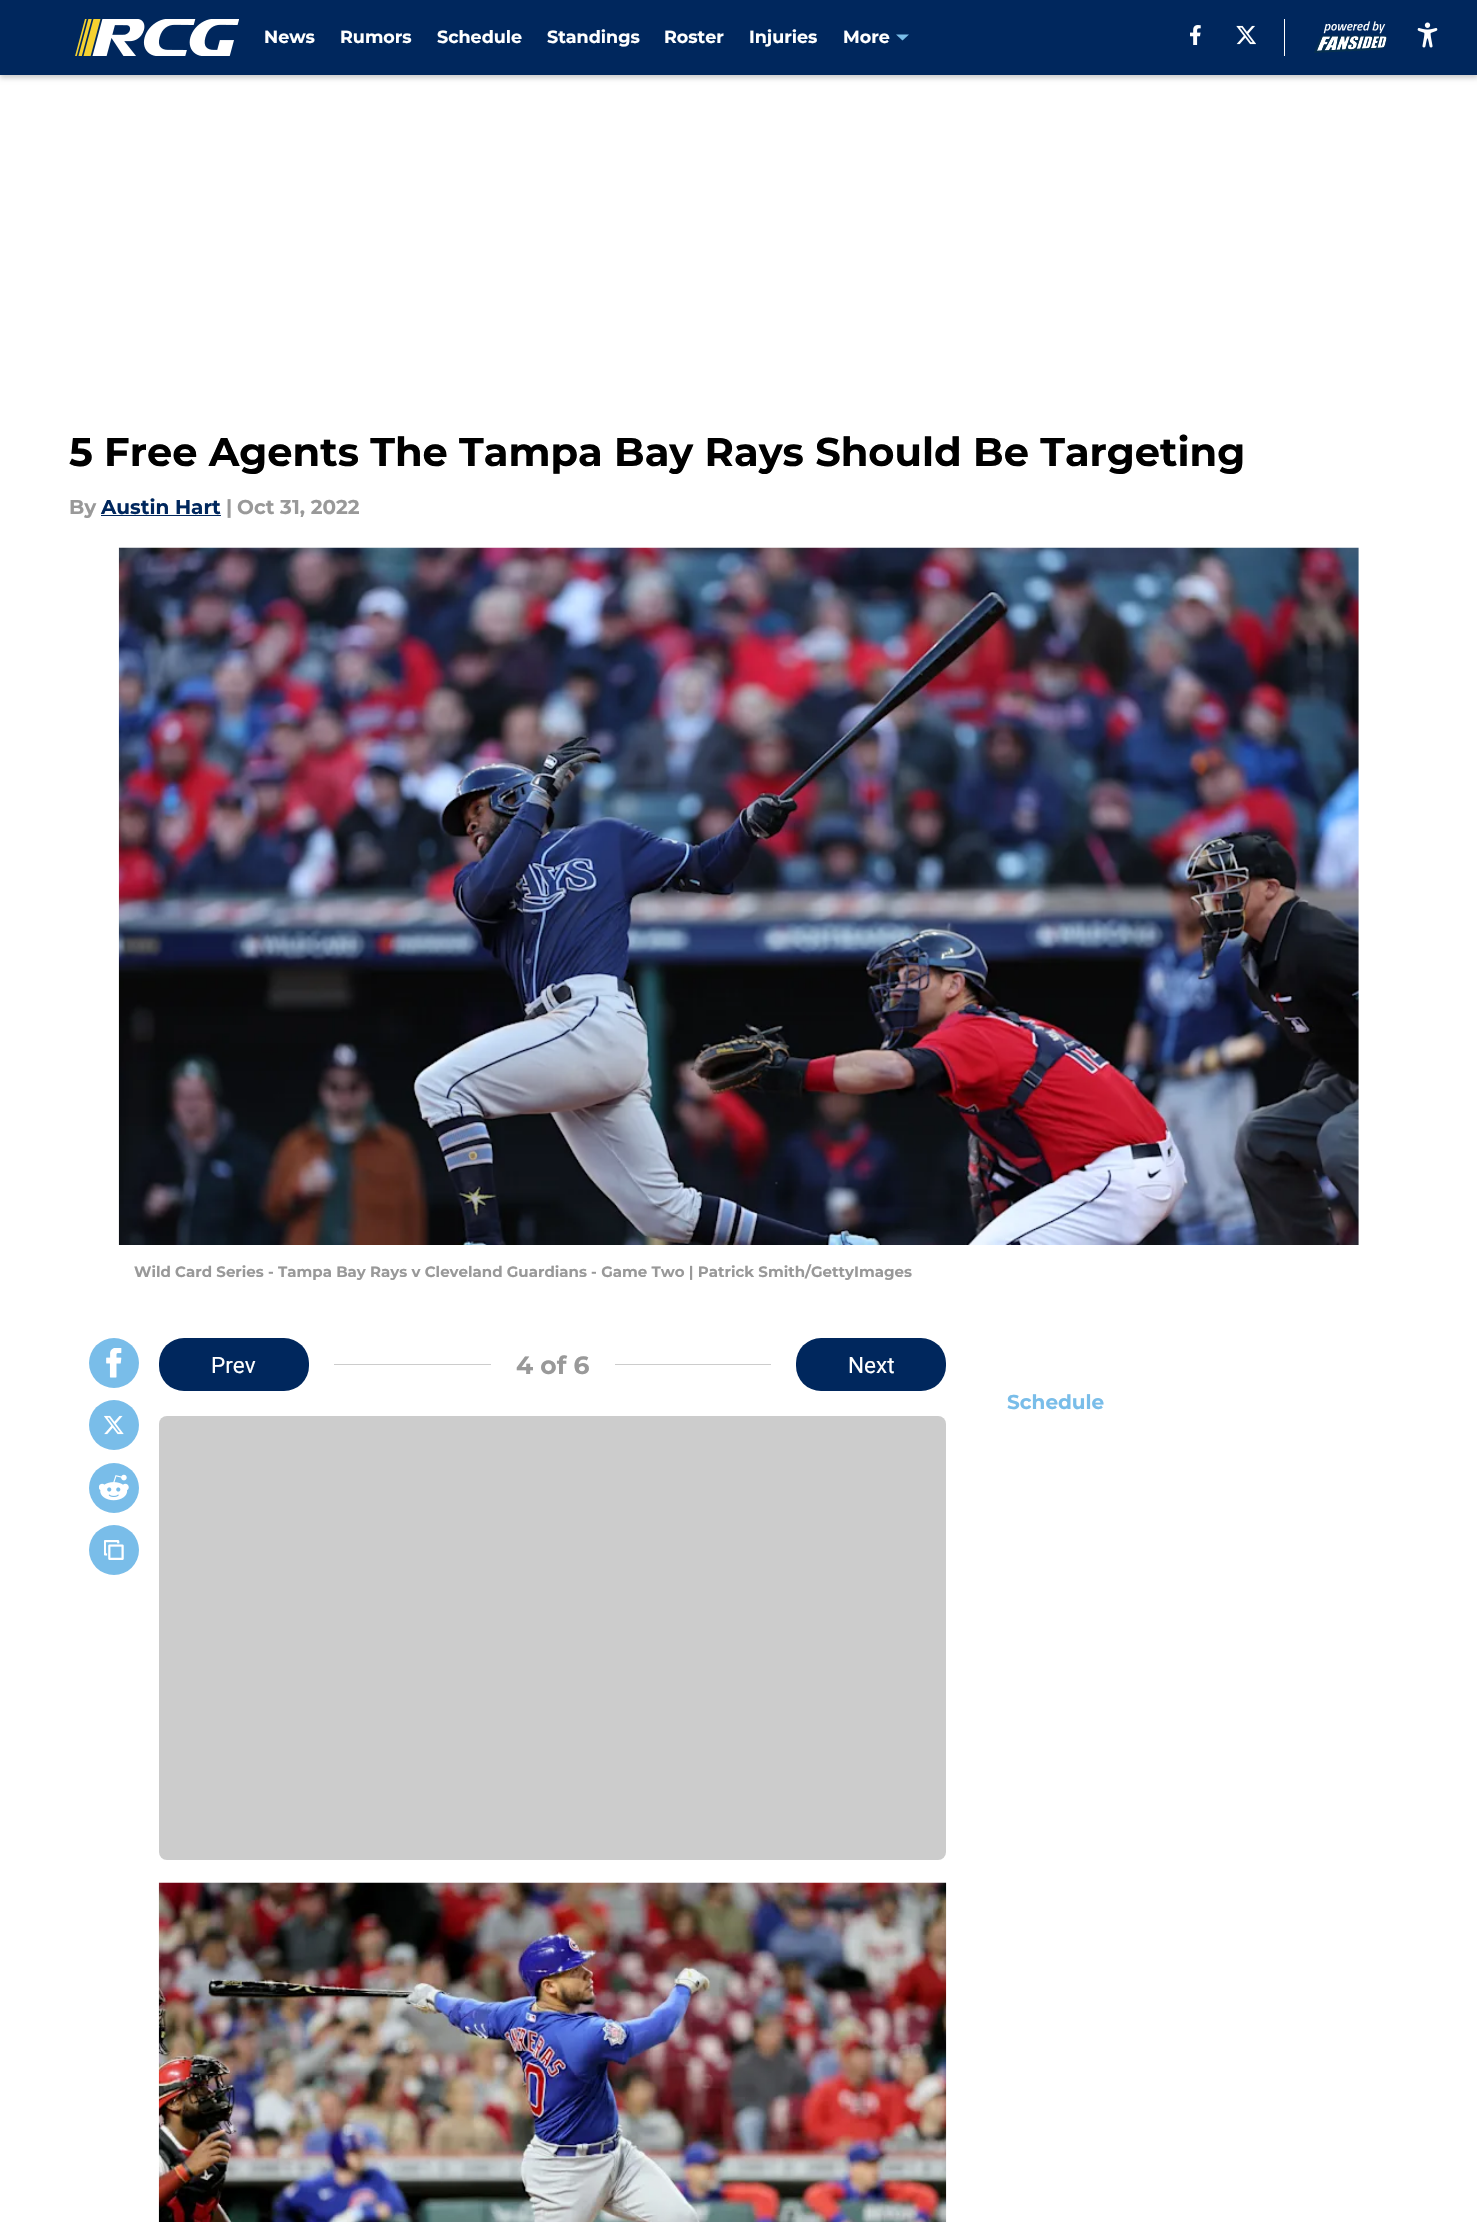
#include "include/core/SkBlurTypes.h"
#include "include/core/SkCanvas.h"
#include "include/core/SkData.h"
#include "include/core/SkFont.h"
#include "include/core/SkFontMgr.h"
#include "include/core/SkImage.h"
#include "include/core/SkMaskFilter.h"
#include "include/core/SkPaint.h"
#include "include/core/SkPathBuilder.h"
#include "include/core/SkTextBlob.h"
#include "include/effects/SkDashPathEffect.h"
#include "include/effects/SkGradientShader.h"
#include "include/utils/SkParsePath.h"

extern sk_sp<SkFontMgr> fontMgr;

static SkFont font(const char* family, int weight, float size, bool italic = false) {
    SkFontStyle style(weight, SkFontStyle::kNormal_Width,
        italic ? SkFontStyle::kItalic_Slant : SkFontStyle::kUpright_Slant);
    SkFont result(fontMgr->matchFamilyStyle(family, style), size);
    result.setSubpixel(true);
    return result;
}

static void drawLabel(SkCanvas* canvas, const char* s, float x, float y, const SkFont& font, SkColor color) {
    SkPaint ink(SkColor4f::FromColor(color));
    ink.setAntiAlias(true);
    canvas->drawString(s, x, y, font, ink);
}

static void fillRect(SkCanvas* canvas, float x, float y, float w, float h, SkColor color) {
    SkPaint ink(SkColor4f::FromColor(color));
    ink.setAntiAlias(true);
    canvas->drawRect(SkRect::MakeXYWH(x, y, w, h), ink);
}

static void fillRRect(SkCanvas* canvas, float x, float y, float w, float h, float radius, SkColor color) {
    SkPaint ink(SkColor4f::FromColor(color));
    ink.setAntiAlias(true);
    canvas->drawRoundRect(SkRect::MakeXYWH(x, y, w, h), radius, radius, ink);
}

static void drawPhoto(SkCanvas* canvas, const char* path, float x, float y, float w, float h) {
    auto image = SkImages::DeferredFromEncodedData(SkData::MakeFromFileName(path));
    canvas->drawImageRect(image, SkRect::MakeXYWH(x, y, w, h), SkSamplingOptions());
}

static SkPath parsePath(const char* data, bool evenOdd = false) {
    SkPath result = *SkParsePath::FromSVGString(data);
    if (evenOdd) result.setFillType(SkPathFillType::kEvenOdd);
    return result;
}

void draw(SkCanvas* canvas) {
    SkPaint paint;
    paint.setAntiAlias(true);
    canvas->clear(0xFFFFFFFF);
    paint.setColor(0x33000000);
    paint.setMaskFilter(SkMaskFilter::MakeBlur(kNormal_SkBlurStyle, 2.5f));
    canvas->drawRect(SkRect::MakeXYWH(0, 3, 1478, 75), paint);
    paint.setMaskFilter(nullptr);
    fillRect(canvas, 0, 0, 1477, 75, 0xFF00275D);
    drawPhoto(canvas, "assets/img1.png", 75, 19, 164, 37);
    SkFont font1 = font("Montserrat", 100, 17.5f);
    drawLabel(canvas, "News", 264, 43, font1, 0xFFFFFFFF);
    drawLabel(canvas, "Rumors", 340, 43, font1, 0xFFFFFFFF);
    drawLabel(canvas, "Schedule", 437, 43, font1, 0xFFFFFFFF);
    drawLabel(canvas, "Standings", 547, 43, font1, 0xFFFFFFFF);
    drawLabel(canvas, "Roster", 664, 43, font1, 0xFFFFFFFF);
    drawLabel(canvas, "Injuries", 749, 43, font1, 0xFFFFFFFF);
    drawLabel(canvas, "More", 843, 43, font1, 0xFFFFFFFF);
    paint.setColor(0xFF79BDE9);
    canvas->drawPath(parsePath("M896 34.5L902.5 40.5L909 34.5Z", true), paint);
    drawPhoto(canvas, "assets/img2.png", 1190, 25, 11, 20);
    drawPhoto(canvas, "assets/img3.png", 1236, 25, 20, 20);
    fillRect(canvas, 1284, 19, 1, 37, 0xFFFFFFFF);
    drawPhoto(canvas, "assets/img4.png", 1314, 21, 73, 32);
    drawPhoto(canvas, "assets/img5.png", 1417, 22, 21, 26);
    SkFont font2 = font("Montserrat", 100, 40);
    drawLabel(canvas, "5 Free Agents The Tampa Bay Rays Should Be Targeting", 69, 466, font2, 0xFF000000);
    SkFont font3 = font("Montserrat", 100, 20);
    drawLabel(canvas, "By", 69, 514, font3, 0xFF999999);
    drawLabel(canvas, "Austin Hart", 101, 514, font3, 0xFF00275D);
    fillRect(canvas, 101, 515, 120, 1, 0xFF00275D);
    drawLabel(canvas, "|", 226, 514, font3, 0xFF999999);
    drawLabel(canvas, "Oct 31, 2022", 237, 514, font3, 0xFF999999);
    fillRect(canvas, 1358, 548, 1, 697, 0xFFF7F7F7);
    drawPhoto(canvas, "assets/img6.png", 118, 547, 1241, 698);
    SkFont font4 = font("Montserrat", 100, 15);
    drawLabel(canvas, "Wild Card Series - Tampa Bay Rays v Cleveland Guardians - Game Two | Patrick Smith/GettyImages", 134, 1277, font4, 0xFF999999);
    canvas->drawCircle(114, 1363, 25, paint);
    drawPhoto(canvas, "assets/img7.png", 106, 1348, 16, 30);
    canvas->drawCircle(114, 1425, 25, paint);
    drawPhoto(canvas, "assets/img8.png", 104, 1415, 20, 20);
    canvas->drawCircle(114, 1488, 25, paint);
    drawPhoto(canvas, "assets/img9.png", 99, 1474, 30, 27);
    canvas->drawCircle(114, 1550, 25, paint);
    drawPhoto(canvas, "assets/img10.png", 104, 1540, 20, 20);
    fillRRect(canvas, 159, 1338, 150, 53, 25, 0xFF00275D);
    SkFont font5 = font("Roboto", 400, 22.5f);
    drawLabel(canvas, "Prev", 211, 1373, font5, 0xFFFFFFFF);
    fillRect(canvas, 334, 1364, 157, 1, 0xFFCCCCCC);
    SkFont font6 = font("Montserrat", 100, 25);
    drawLabel(canvas, "4 of 6", 516, 1374, font6, 0xFF999999);
    fillRect(canvas, 615, 1364, 156, 1, 0xFFCCCCCC);
    fillRRect(canvas, 796, 1338, 150, 53, 25, 0xFF00275D);
    drawLabel(canvas, "Next", 848, 1373, font5, 0xFFFFFFFF);
    fillRRect(canvas, 159, 1416, 787, 444, 8, 0xFFCCCCCC);
    drawPhoto(canvas, "assets/img11.png", 158, 1882, 789, 340);
    drawLabel(canvas, "Schedule", 1007, 1409, font3, 0xFF79BDE9);
}
